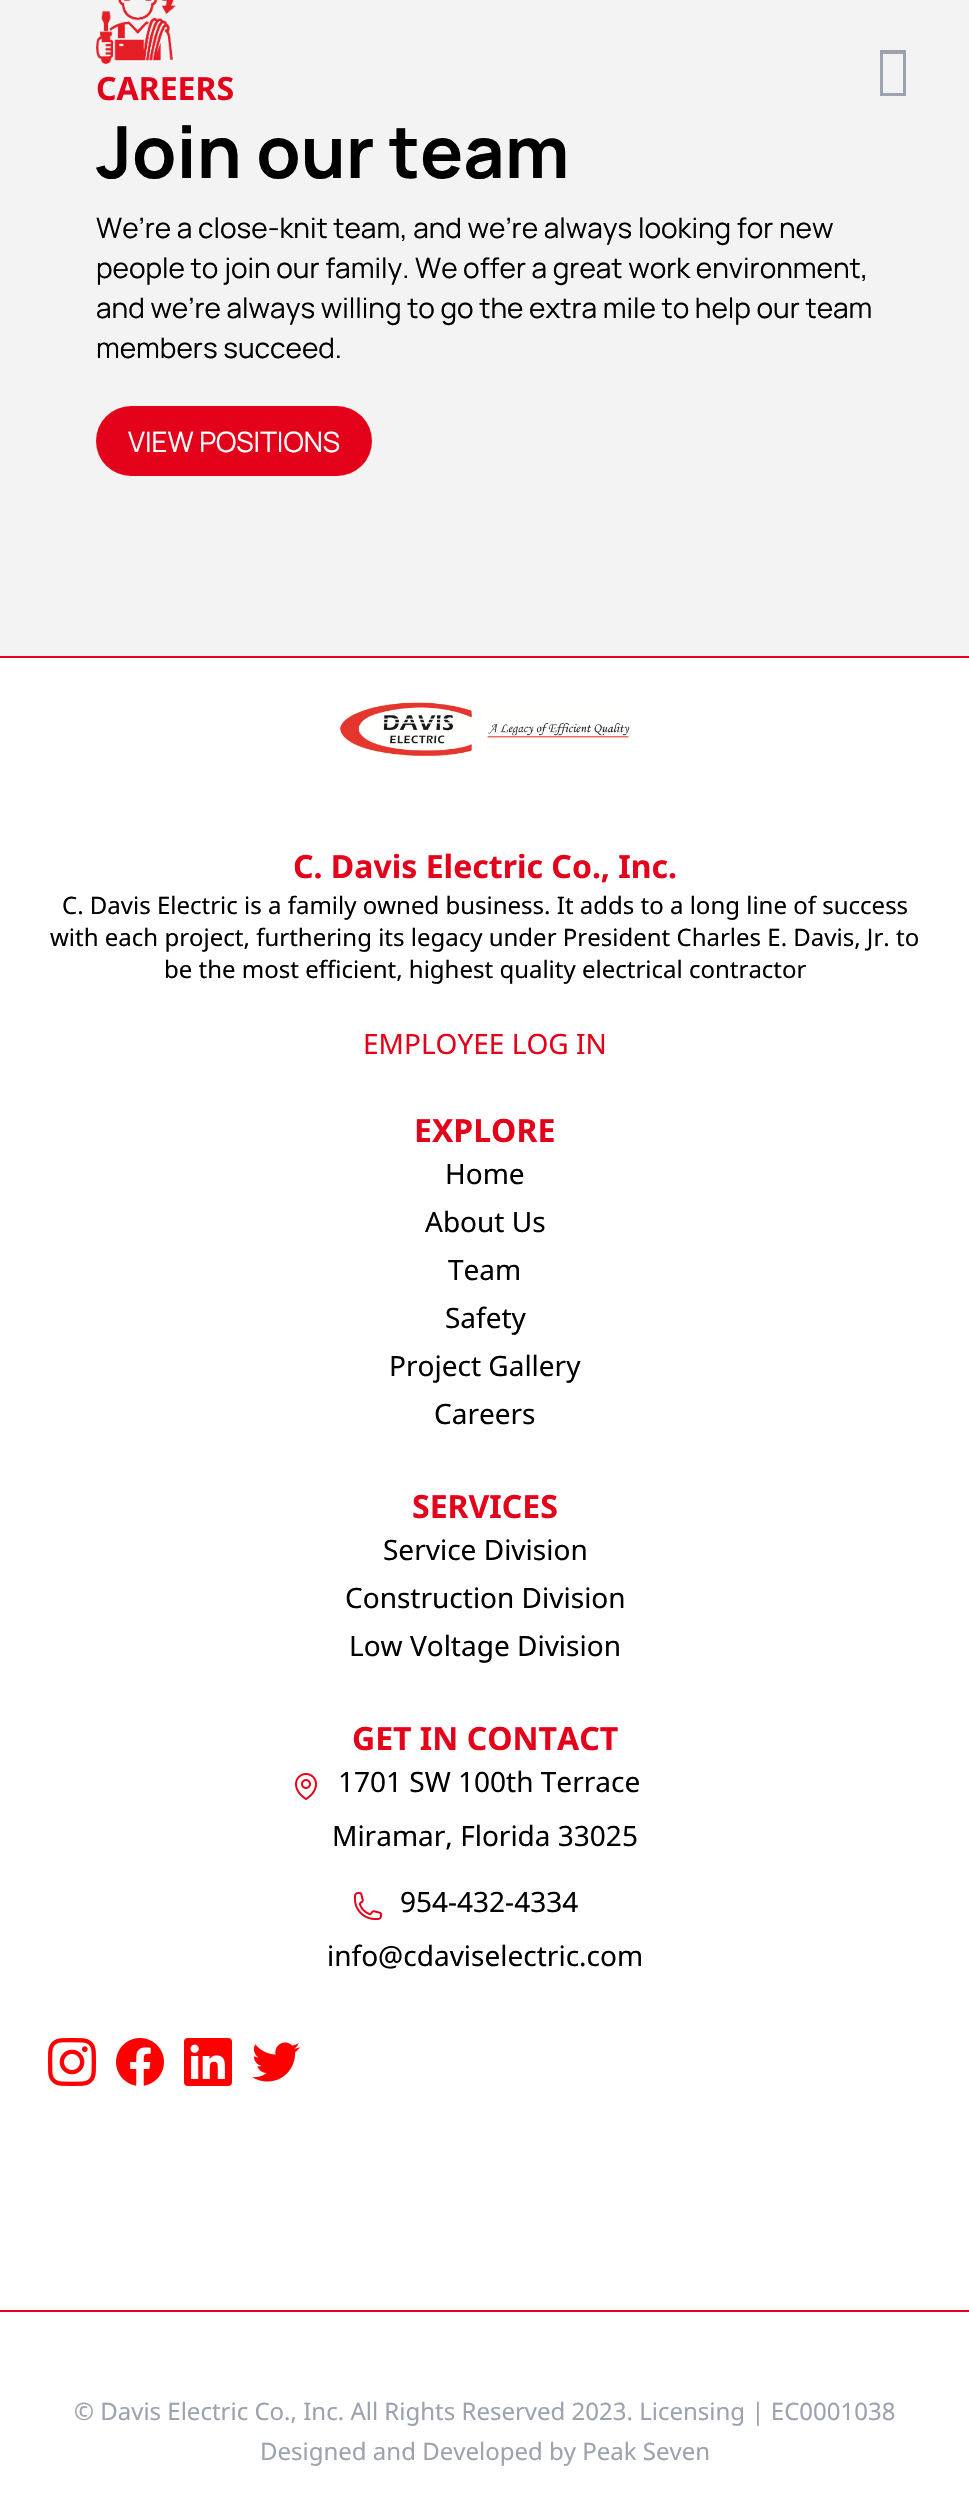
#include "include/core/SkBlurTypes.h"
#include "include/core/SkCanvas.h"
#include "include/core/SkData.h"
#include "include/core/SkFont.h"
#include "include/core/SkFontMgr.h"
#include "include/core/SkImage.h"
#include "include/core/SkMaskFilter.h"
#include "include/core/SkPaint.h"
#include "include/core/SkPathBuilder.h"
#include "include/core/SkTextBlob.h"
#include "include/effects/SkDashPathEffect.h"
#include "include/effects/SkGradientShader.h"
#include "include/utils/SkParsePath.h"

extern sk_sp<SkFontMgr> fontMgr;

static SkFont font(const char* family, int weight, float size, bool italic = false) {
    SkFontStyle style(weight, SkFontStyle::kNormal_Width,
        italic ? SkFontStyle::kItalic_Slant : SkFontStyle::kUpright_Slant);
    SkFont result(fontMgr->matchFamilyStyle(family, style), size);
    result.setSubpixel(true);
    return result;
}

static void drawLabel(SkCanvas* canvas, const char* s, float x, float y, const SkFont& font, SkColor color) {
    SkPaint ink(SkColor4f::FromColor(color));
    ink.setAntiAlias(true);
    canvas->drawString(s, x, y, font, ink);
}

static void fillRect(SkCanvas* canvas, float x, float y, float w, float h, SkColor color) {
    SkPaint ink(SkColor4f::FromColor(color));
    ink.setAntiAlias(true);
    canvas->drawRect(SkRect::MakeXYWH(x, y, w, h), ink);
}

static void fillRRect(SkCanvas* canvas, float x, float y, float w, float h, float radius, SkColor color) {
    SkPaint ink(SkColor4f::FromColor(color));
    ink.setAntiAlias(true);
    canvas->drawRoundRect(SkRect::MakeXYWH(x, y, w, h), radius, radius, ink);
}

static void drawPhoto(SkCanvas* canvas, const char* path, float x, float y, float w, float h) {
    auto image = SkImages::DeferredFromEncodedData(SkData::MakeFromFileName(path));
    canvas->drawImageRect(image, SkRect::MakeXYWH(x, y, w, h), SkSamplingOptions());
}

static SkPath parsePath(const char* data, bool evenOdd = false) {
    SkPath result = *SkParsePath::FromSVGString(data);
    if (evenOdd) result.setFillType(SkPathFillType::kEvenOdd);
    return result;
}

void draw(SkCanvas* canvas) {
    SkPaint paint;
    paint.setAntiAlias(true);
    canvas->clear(0xFFFFFFFF);
    fillRect(canvas, 0, 0, 969, 656, 0xFFF3F3F3);
    drawPhoto(canvas, "assets/img1.png", 96, 0, 80, 64);
    SkFont font1 = font("Noto Sans", 700, 32);
    drawLabel(canvas, "CAREERS", 96, 100, font1, 0xFFE4021B);
    SkFont font2 = font("Manrope", 700, 72);
    drawLabel(canvas, "Join our team", 96, 178, font2, 0xFF000000);
    SkFont font3 = font("Manrope", 400, 28);
    drawLabel(canvas, "We’re a close-knit team, and we’re always looking for new", 96, 238, font3, 0xFF000000);
    drawLabel(canvas, "people to join our family. We offer a great work environment,", 96, 278, font3, 0xFF000000);
    drawLabel(canvas, "and we’re always willing to go the extra mile to help our team", 96, 318, font3, 0xFF000000);
    drawLabel(canvas, "members succeed.", 96, 358, font3, 0xFF000000);
    fillRRect(canvas, 96, 406, 276, 70, 35, 0xFFE4021B);
    drawLabel(canvas, "VIEW POSITIONS", 128, 452, font3, 0xFFFFFFFF);
    paint.setColor(0xFF9CA3AF);
    canvas->drawPath(parsePath("M880 96V50H906V96ZM883 93H903V54H883Z"), paint);
    fillRect(canvas, 0, 656, 969, 2, 0xFFE4021B);
    fillRect(canvas, 0, 2310, 969, 2, 0xFFE4021B);
    drawPhoto(canvas, "assets/img2.png", 340, 702, 290, 54);
    drawLabel(canvas, "C. Davis Electric Co., Inc.", 293, 878, font1, 0xFFE4021B);
    SkFont font4 = font("Noto Sans", 400, 24);
    drawLabel(canvas, "C. Davis Electric is a family owned business. It adds to a long line of success", 62, 914, font4, 0xFF000000);
    drawLabel(canvas, "with each project, furthering its legacy under President Charles E. Davis, Jr. to", 50, 946, font4, 0xFF000000);
    drawLabel(canvas, "be the most efficient, highest quality electrical contractor", 164, 978, font4, 0xFF000000);
    SkFont font5 = font("Noto Sans", 400, 28);
    drawLabel(canvas, "EMPLOYEE LOG IN", 363, 1054, font5, 0xFFE4021B);
    drawLabel(canvas, "EXPLORE", 414, 1142, font1, 0xFFE4021B);
    drawLabel(canvas, "Home", 445, 1184, font5, 0xFF000000);
    drawLabel(canvas, "About Us", 425, 1232, font5, 0xFF000000);
    drawLabel(canvas, "Team", 448, 1280, font5, 0xFF000000);
    drawLabel(canvas, "Safety", 445, 1328, font5, 0xFF000000);
    drawLabel(canvas, "Project Gallery", 389, 1376, font5, 0xFF000000);
    drawLabel(canvas, "Careers", 434, 1424, font5, 0xFF000000);
    drawLabel(canvas, "SERVICES", 412, 1518, font1, 0xFFE4021B);
    drawLabel(canvas, "Service Division", 383, 1560, font5, 0xFF000000);
    drawLabel(canvas, "Construction Division", 345, 1608, font5, 0xFF000000);
    drawLabel(canvas, "Low Voltage Division", 349, 1656, font5, 0xFF000000);
    drawLabel(canvas, "GET IN CONTACT", 352, 1750, font1, 0xFFE4021B);
    drawPhoto(canvas, "assets/img3.png", 295, 1773, 22, 27);
    drawLabel(canvas, "1701 SW 100th Terrace", 338, 1792, font5, 0xFF000000);
    drawLabel(canvas, "Miramar, Florida 33025", 332, 1846, font5, 0xFF000000);
    drawPhoto(canvas, "assets/img4.png", 354, 1892, 28, 28);
    drawLabel(canvas, "954-432-4334", 400, 1912, font5, 0xFF000000);
    drawLabel(canvas, "info@cdaviselectric.com", 327, 1966, font5, 0xFF000000);
    drawPhoto(canvas, "assets/img5.png", 48, 2038, 48, 48);
    drawPhoto(canvas, "assets/img6.png", 116, 2038, 48, 48);
    drawPhoto(canvas, "assets/img7.png", 184, 2038, 48, 48);
    drawPhoto(canvas, "assets/img8.png", 252, 2042, 48, 40);
    drawLabel(canvas, "© Davis Electric Co., Inc. All Rights Reserved 2023. Licensing | EC0001038", 74, 2420, font4, 0xFF9CA3AF);
    drawLabel(canvas, "Designed and Developed by Peak Seven", 260, 2460, font4, 0xFF9CA3AF);
}
